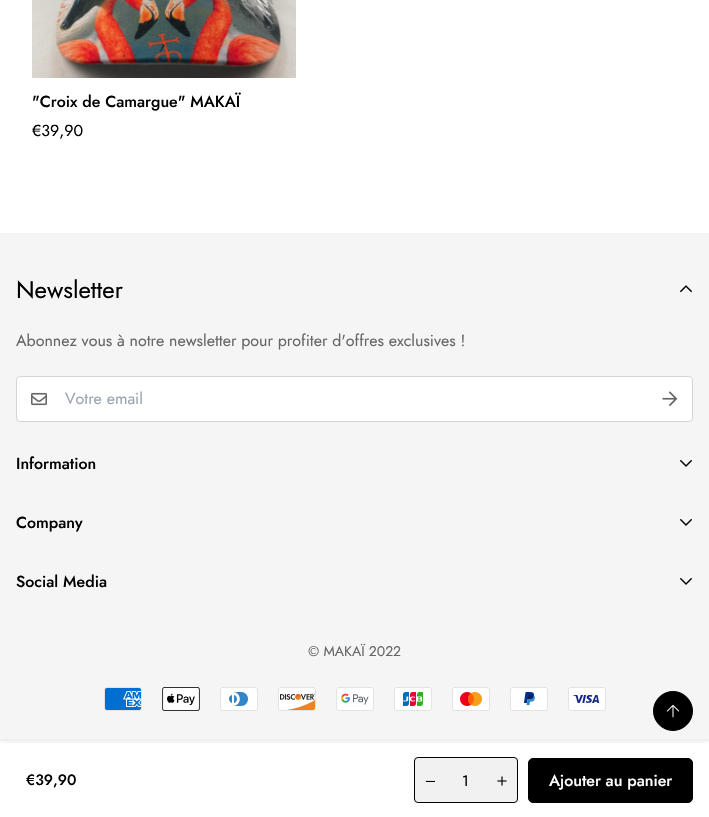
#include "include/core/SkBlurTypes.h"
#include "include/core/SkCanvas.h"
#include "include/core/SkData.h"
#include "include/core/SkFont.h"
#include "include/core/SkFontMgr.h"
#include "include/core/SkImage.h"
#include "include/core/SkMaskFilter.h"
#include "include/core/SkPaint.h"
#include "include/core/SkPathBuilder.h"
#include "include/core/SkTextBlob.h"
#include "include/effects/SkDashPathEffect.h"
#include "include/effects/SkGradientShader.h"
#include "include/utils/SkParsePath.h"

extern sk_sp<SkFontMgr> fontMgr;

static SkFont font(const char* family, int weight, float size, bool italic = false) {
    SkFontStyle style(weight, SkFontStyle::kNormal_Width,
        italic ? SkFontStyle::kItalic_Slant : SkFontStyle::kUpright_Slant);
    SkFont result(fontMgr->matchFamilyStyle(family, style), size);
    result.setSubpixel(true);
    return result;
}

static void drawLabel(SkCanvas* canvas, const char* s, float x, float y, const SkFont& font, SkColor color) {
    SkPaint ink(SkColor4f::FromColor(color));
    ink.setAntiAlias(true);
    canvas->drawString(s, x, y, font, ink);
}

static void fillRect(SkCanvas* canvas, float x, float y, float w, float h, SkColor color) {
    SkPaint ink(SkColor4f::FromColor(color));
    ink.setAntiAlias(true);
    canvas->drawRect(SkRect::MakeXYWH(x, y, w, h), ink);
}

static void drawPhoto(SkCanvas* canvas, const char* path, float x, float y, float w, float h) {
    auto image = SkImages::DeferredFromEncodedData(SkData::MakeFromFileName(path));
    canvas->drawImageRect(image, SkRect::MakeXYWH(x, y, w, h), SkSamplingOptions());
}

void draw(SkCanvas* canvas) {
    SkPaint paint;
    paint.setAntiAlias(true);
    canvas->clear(0xFFFFFFFF);
    drawPhoto(canvas, "assets/img1.png", 32, 0, 264, 78);
    SkFont font1 = font("Jost", 500, 16);
    drawLabel(canvas, "\"Croix de Camargue\" MAKAÏ", 32, 107, font1, 0xFF000000);
    SkFont font2 = font("Jost", 400, 16);
    drawLabel(canvas, "€39,90", 32, 136, font2, 0xFF000000);
    fillRect(canvas, 0, 233, 709, 508, 0xFFF5F5F5);
    canvas->save();
    canvas->clipRect(SkRect::MakeXYWH(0, 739, 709, 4));
    paint.setColor(0x17000000);
    paint.setMaskFilter(SkMaskFilter::MakeBlur(kNormal_SkBlurStyle, 5));
    canvas->drawRect(SkRect::MakeXYWH(0, 743, 709, 74), paint);
    paint.setMaskFilter(nullptr);
    canvas->restore();
    paint.setColor(0xFF000000);
    canvas->drawCircle(673, 711, 19.5f, paint);
    paint.setStroke(true);
    paint.setStrokeWidth(1);
    canvas->drawCircle(673, 711, 19.5f, paint);
    drawPhoto(canvas, "assets/img2.png", 666, 704, 14, 14);
    SkFont font3 = font("Jost", 500, 15);
    drawLabel(canvas, "€39,90", 26, 785, font3, 0xFF000000);
    paint.setStroke(false);
    paint.setColor(0xFFF1F1F1);
    canvas->drawRoundRect(SkRect::MakeXYWH(414.5f, 757.5f, 103, 45), 3.5f, 3.5f, paint);
    paint.setStroke(true);
    paint.setColor(0xFF000000);
    canvas->drawRoundRect(SkRect::MakeXYWH(414.5f, 757.5f, 103, 45), 3.5f, 3.5f, paint);
    drawPhoto(canvas, "assets/img3.png", 425, 780, 10, 2);
    SkFont font4 = font("Jost", 400, 15);
    drawLabel(canvas, "1", 462, 786, font4, 0xFF000000);
    drawPhoto(canvas, "assets/img4.png", 497, 776, 10, 10);
    paint.setStroke(false);
    canvas->drawRoundRect(SkRect::MakeXYWH(528.5f, 758.5f, 164, 44), 4.5f, 4.5f, paint);
    paint.setStroke(true);
    canvas->drawRoundRect(SkRect::MakeXYWH(528.5f, 758.5f, 164, 44), 4.5f, 4.5f, paint);
    drawLabel(canvas, "Ajouter au panier", 549, 786, font1, 0xFFFFFFFF);
    SkFont font5 = font("Jost", 400, 24);
    drawLabel(canvas, "Newsletter", 16, 298, font5, 0xFF000000);
    drawPhoto(canvas, "assets/img5.png", 680, 285, 12, 8);
    drawLabel(canvas, "Abonnez vous à notre newsletter pour profiter d'offres exclusives !", 16, 346, font2, 0xFF666666);
    paint.setStroke(false);
    paint.setColor(0xFFFFFFFF);
    canvas->drawRoundRect(SkRect::MakeXYWH(16.5f, 376.5f, 676, 45), 3.5f, 3.5f, paint);
    paint.setStroke(true);
    paint.setColor(0xFFD4D4D4);
    canvas->drawRoundRect(SkRect::MakeXYWH(16.5f, 376.5f, 676, 45), 3.5f, 3.5f, paint);
    drawPhoto(canvas, "assets/img6.png", 31, 392, 16, 14);
    drawLabel(canvas, "Votre email", 65, 404, font2, 0xFF9CA3AF);
    drawPhoto(canvas, "assets/img7.png", 662, 391, 16, 15);
    drawLabel(canvas, "Information", 16, 469, font1, 0xFF000000);
    drawPhoto(canvas, "assets/img8.png", 680, 460, 12, 7);
    drawLabel(canvas, "Company", 16, 528, font1, 0xFF000000);
    drawPhoto(canvas, "assets/img8.png", 680, 519, 12, 7);
    drawLabel(canvas, "Social Media", 16, 587, font1, 0xFF000000);
    drawPhoto(canvas, "assets/img8.png", 680, 578, 12, 7);
    SkFont font6 = font("Jost", 400, 14);
    drawLabel(canvas, "© MAKAÏ 2022", 308, 656, font6, 0xFF666666);
    drawPhoto(canvas, "assets/img9.png", 104, 687, 38, 24);
    drawPhoto(canvas, "assets/img10.png", 162, 687, 38, 24);
    drawPhoto(canvas, "assets/img11.png", 220, 687, 38, 24);
    drawPhoto(canvas, "assets/img12.png", 278, 687, 38, 24);
    drawPhoto(canvas, "assets/img13.png", 336, 687, 38, 24);
    drawPhoto(canvas, "assets/img14.png", 394, 687, 38, 24);
    drawPhoto(canvas, "assets/img15.png", 452, 687, 38, 24);
    drawPhoto(canvas, "assets/img16.png", 510, 687, 38, 24);
    drawPhoto(canvas, "assets/img17.png", 568, 687, 38, 24);
}
